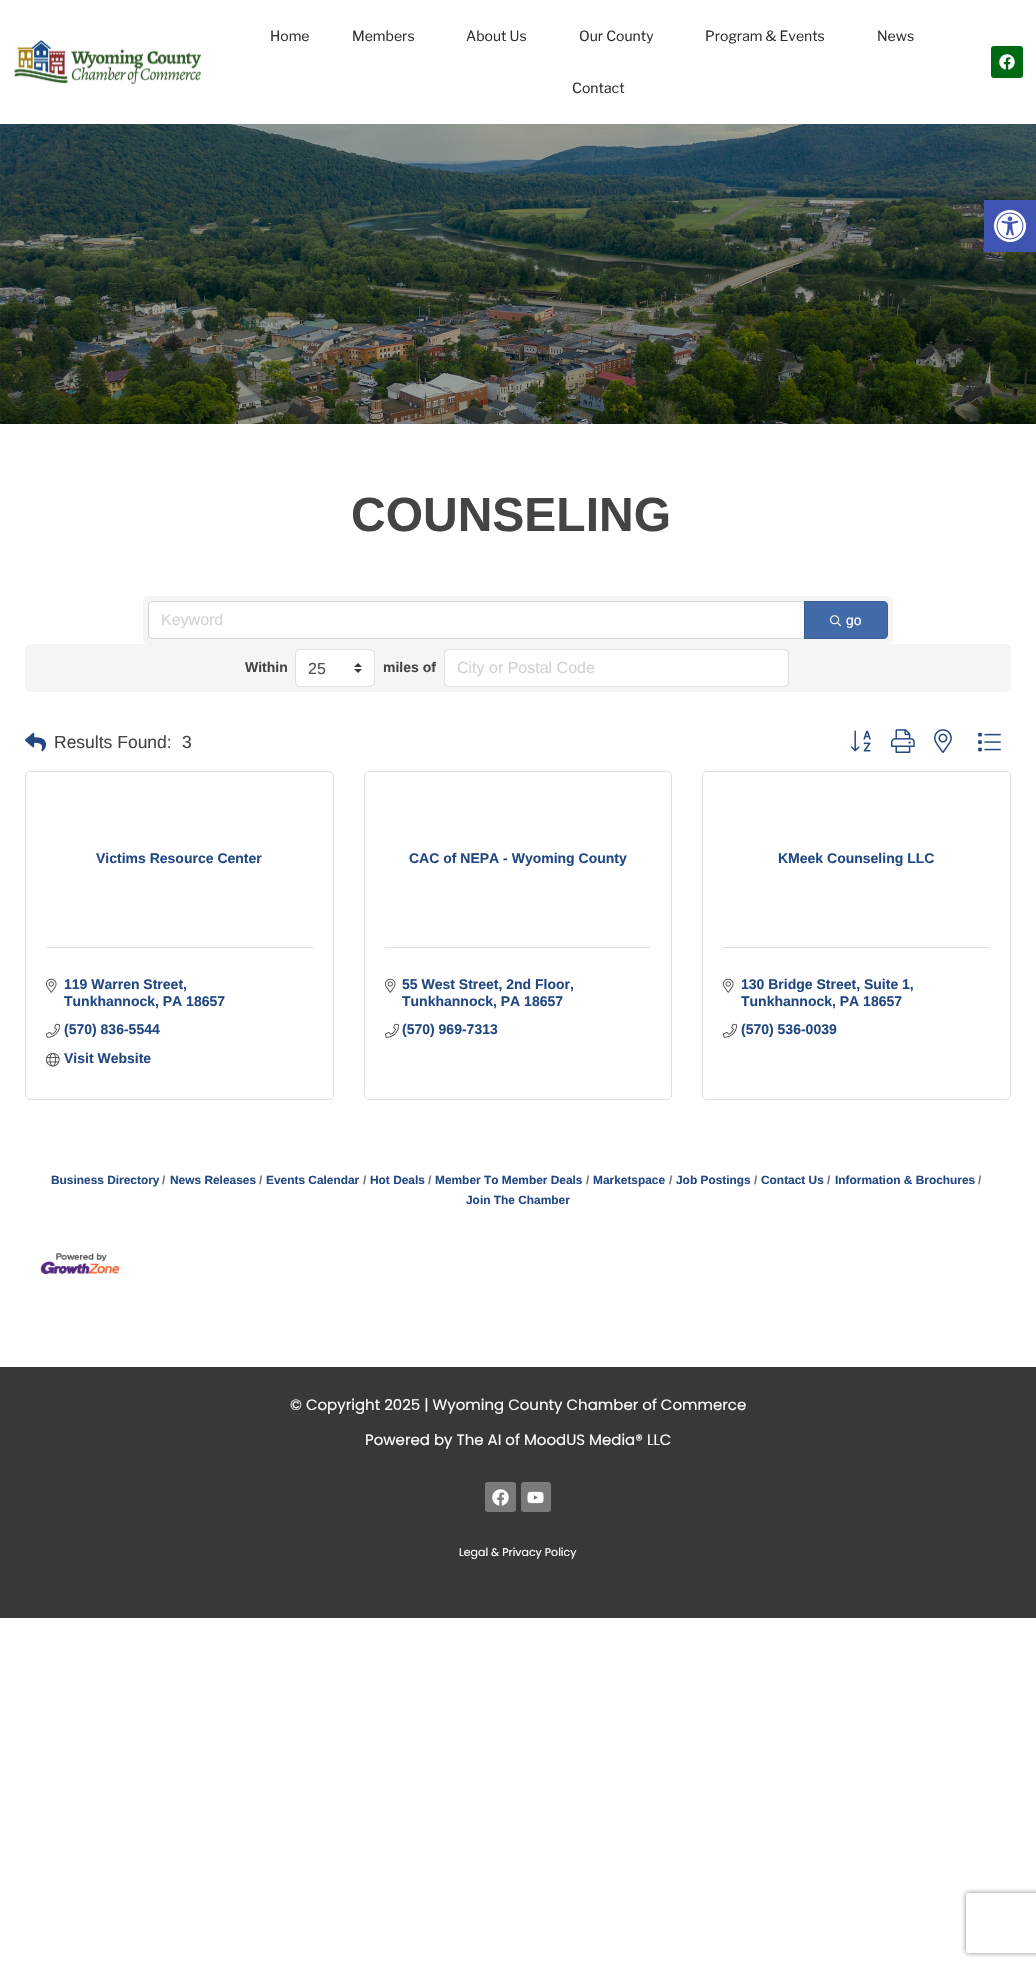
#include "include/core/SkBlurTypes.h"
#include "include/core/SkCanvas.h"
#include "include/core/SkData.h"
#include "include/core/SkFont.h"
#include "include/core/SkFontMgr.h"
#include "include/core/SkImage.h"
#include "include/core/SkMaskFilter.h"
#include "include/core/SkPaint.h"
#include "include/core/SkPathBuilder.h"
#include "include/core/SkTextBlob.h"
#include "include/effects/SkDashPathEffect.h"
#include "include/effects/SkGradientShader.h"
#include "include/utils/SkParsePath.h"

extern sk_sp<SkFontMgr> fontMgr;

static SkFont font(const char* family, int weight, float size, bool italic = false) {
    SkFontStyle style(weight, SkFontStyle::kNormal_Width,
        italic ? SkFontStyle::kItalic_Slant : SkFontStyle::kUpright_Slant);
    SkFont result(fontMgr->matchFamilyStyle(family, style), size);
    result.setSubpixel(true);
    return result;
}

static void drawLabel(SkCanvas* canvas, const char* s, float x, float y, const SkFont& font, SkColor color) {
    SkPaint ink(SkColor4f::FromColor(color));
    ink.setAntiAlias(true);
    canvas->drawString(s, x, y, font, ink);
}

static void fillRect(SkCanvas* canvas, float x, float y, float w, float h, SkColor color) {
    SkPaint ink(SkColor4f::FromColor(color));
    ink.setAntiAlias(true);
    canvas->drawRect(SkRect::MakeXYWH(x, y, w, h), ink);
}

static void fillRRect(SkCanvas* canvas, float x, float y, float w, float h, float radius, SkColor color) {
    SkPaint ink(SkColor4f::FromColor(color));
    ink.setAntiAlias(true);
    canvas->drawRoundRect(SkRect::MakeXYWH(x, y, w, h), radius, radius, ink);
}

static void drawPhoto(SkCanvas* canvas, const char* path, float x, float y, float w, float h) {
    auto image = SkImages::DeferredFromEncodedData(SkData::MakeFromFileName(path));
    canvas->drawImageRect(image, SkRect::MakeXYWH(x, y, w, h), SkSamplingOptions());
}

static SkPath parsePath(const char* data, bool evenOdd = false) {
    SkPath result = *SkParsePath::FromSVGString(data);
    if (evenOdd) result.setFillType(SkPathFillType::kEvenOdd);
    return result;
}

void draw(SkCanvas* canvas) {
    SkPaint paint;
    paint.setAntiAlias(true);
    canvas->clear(0xFFFFFFFF);
    drawPhoto(canvas, "assets/img1.png", 14, 40, 188, 45);
    SkFont font1 = font("Libre Franklin", 100, 14);
    drawLabel(canvas, "Home", 270, 41, font1, 0xFF2A302F);
    drawLabel(canvas, "Members", 352, 41, font1, 0xFF2A302F);
    drawLabel(canvas, "About Us", 466, 41, font1, 0xFF2A302F);
    drawLabel(canvas, "Our County", 579, 41, font1, 0xFF2A302F);
    drawLabel(canvas, "Program & Events", 705, 41, font1, 0xFF2A302F);
    drawLabel(canvas, "News", 877, 41, font1, 0xFF2A302F);
    drawLabel(canvas, "Contact", 572, 93, font1, 0xFF2A302F);
    fillRRect(canvas, 991, 46, 32, 32, 3, 0xFF006914);
    drawPhoto(canvas, "assets/img2.png", 999, 54, 16, 16);
    drawPhoto(canvas, "assets/img4.png", 0, 124, 1036, 300);
    paint.setColor(0x1A000000);
    paint.setMaskFilter(SkMaskFilter::MakeBlur(kNormal_SkBlurStyle, 5));
    canvas->drawRect(SkRect::MakeXYWH(984, 200, 52, 52), paint);
    paint.setMaskFilter(nullptr);
    fillRect(canvas, 984, 200, 52, 52, 0xFF4054B2);
    drawPhoto(canvas, "assets/img3.png", 994, 210, 32, 32);
    SkFont font2 = font("Liberation Sans", 700, 48);
    drawLabel(canvas, "COUNSELING", 351, 531, font2, 0xFF444444);
    fillRRect(canvas, 143, 596, 750, 48, 5, 0xFFF5F5F5);
    paint.setColor(0xFFFFFFFF);
    canvas->drawRoundRect(SkRect::MakeXYWH(148.5f, 601.5f, 656, 37), 4.5f, 4.5f, paint);
    paint.setStroke(true);
    paint.setStrokeWidth(1);
    paint.setColor(0xFFD6D6D6);
    canvas->drawRoundRect(SkRect::MakeXYWH(148.5f, 601.5f, 656, 37), 4.5f, 4.5f, paint);
    SkFont font3 = font("Liberation Sans", 400, 16);
    drawLabel(canvas, "Keyword", 161, 625, font3, 0xFFD2D2D2);
    paint.setStroke(false);
    paint.setColor(0xFF406BA8);
    canvas->drawPath(parsePath("M804 601H883C886 601 888 603 888 606V634C888 637 886 639 883 639H804Z"), paint);
    paint.setStroke(true);
    paint.setColor(0x1F000000);
    canvas->drawPath(parsePath("M804.5 601.5H883C885.5 601.5 887.5 603.5 887.5 606V634C887.5 636.5 885.5 638.5 883 638.5H804.5Z"), paint);
    drawPhoto(canvas, "assets/img5.png", 830, 615, 12, 12);
    SkFont font4 = font("Liberation Sans", 400, 14);
    drawLabel(canvas, "go", 846, 625, font4, 0xFFFFFFFF);
    fillRRect(canvas, 25, 644, 986, 48, 5, 0xFFF5F5F5);
    SkFont font5 = font("Liberation Sans", 700, 14);
    drawLabel(canvas, "Within", 245, 672, font5, 0xFF444444);
    fillRRect(canvas, 295, 649, 80, 38, 5, 0xFFFFFFFF);
    drawPhoto(canvas, "assets/img6.png", 354, 663, 8, 10);
    canvas->drawRoundRect(SkRect::MakeXYWH(295.5f, 649.5f, 79, 37), 4.5f, 4.5f, paint);
    drawLabel(canvas, "25", 308, 674, font3, 0xFF495057);
    drawLabel(canvas, "miles of", 383, 672, font5, 0xFF444444);
    fillRRect(canvas, 444, 649, 345, 38, 5, 0xFFFFFFFF);
    canvas->drawRoundRect(SkRect::MakeXYWH(444.5f, 649.5f, 344, 37), 4.5f, 4.5f, paint);
    drawLabel(canvas, "City or Postal Code", 457, 673, font3, 0xFFD2D2D2);
    drawPhoto(canvas, "assets/img7.png", 25, 733, 21, 19);
    SkFont font6 = font("Liberation Sans", 400, 17.5f);
    drawLabel(canvas, "Results Found:", 54, 748, font6, 0xFF444444);
    drawLabel(canvas, "3", 182, 748, font6, 0xFF444444);
    drawPhoto(canvas, "assets/img8.png", 850, 730, 21, 22);
    drawPhoto(canvas, "assets/img9.png", 891, 729, 24, 24);
    drawPhoto(canvas, "assets/img10.png", 934, 729, 18, 24);
    drawPhoto(canvas, "assets/img11.png", 978, 732, 23, 20);
    paint.setColor(0xFFDFDFDF);
    canvas->drawRoundRect(SkRect::MakeXYWH(25.5f, 771.5f, 308, 328), 4.5f, 4.5f, paint);
    drawLabel(canvas, "Victims Resource Center", 96, 863, font5, 0xFF224884);
    fillRect(canvas, 46, 947, 267, 1, 0xFFDFDFDF);
    drawPhoto(canvas, "assets/img12.png", 46, 978, 11, 15);
    drawLabel(canvas, "119 Warren Street,", 64, 989, font5, 0xFF224884);
    drawLabel(canvas, "Tunkhannock, PA 18657", 64, 1006, font5, 0xFF224884);
    drawPhoto(canvas, "assets/img13.png", 46, 1023, 14, 15);
    drawLabel(canvas, "(570) 836-5544", 64, 1034, font5, 0xFF224884);
    drawPhoto(canvas, "assets/img14.png", 46, 1053, 14, 14);
    drawLabel(canvas, "Visit Website", 64, 1063, font5, 0xFF224884);
    canvas->drawRoundRect(SkRect::MakeXYWH(364.5f, 771.5f, 307, 328), 4.5f, 4.5f, paint);
    drawLabel(canvas, "CAC of NEPA - Wyoming County", 409, 863, font5, 0xFF224884);
    fillRect(canvas, 385, 947, 266, 1, 0xFFDFDFDF);
    drawPhoto(canvas, "assets/img12.png", 385, 978, 11, 15);
    drawLabel(canvas, "55 West Street, 2nd Floor,", 402, 989, font5, 0xFF224884);
    drawLabel(canvas, "Tunkhannock, PA 18657", 402, 1006, font5, 0xFF224884);
    drawPhoto(canvas, "assets/img13.png", 385, 1023, 14, 15);
    drawLabel(canvas, "(570) 969-7313", 402, 1034, font5, 0xFF224884);
    canvas->drawRoundRect(SkRect::MakeXYWH(702.5f, 771.5f, 308, 328), 4.5f, 4.5f, paint);
    drawLabel(canvas, "KMeek Counseling LLC", 778, 863, font5, 0xFF224884);
    fillRect(canvas, 723, 947, 267, 1, 0xFFDFDFDF);
    drawPhoto(canvas, "assets/img12.png", 723, 978, 11, 15);
    drawLabel(canvas, "130 Bridge Street, Suite 1,", 741, 989, font5, 0xFF224884);
    drawLabel(canvas, "Tunkhannock, PA 18657", 741, 1006, font5, 0xFF224884);
    drawPhoto(canvas, "assets/img13.png", 723, 1023, 14, 15);
    drawLabel(canvas, "(570) 536-0039", 741, 1034, font5, 0xFF224884);
    SkFont font7 = font("Liberation Sans", 700, 11.9f);
    drawLabel(canvas, "Business Directory", 51, 1184, font7, 0xFF224884);
    drawLabel(canvas, "/", 162, 1184, font7, 0xFF6C757D);
    drawLabel(canvas, "News Releases", 170, 1184, font7, 0xFF224884);
    drawLabel(canvas, "/", 259, 1184, font7, 0xFF6C757D);
    drawLabel(canvas, "Events Calendar", 266, 1184, font7, 0xFF224884);
    drawLabel(canvas, "/", 363, 1184, font7, 0xFF6C757D);
    drawLabel(canvas, "Hot Deals", 370, 1184, font7, 0xFF224884);
    drawLabel(canvas, "/", 428, 1184, font7, 0xFF6C757D);
    drawLabel(canvas, "Member To Member Deals", 435, 1184, font7, 0xFF224884);
    drawLabel(canvas, "/", 978, 1184, font7, 0xFF6C757D);
    drawLabel(canvas, "Join The Chamber", 466, 1204, font7, 0xFF224884);
    drawLabel(canvas, "/", 586, 1184, font7, 0xFF6C757D);
    drawLabel(canvas, "Marketspace", 593, 1184, font7, 0xFF224884);
    drawLabel(canvas, "/", 669, 1184, font7, 0xFF6C757D);
    drawLabel(canvas, "Job Postings", 676, 1184, font7, 0xFF224884);
    drawLabel(canvas, "/", 754, 1184, font7, 0xFF6C757D);
    drawLabel(canvas, "Contact Us", 761, 1184, font7, 0xFF224884);
    drawLabel(canvas, "/", 827, 1184, font7, 0xFF6C757D);
    drawLabel(canvas, "Information & Brochures", 835, 1184, font7, 0xFF224884);
    drawPhoto(canvas, "assets/img15.png", 40, 1253, 80, 21);
    fillRect(canvas, 0, 1367, 1036, 251, 0xFF383838);
    SkFont font8 = font("Poppins", 400, 15);
    drawLabel(canvas, "© Copyright 2025 | Wyoming County Chamber of Commerce", 290, 1410, font8, 0xFFFFFFFF);
    drawLabel(canvas, "Powered by The AI of MoodUS Media® LLC", 365, 1445, font8, 0xFFFFFFFF);
    fillRRect(canvas, 485, 1482, 31, 30, 3, 0xFF7A7A7A);
    drawPhoto(canvas, "assets/img16.png", 492, 1489, 17, 17);
    fillRRect(canvas, 521, 1482, 30, 30, 3, 0xFF7A7A7A);
    drawPhoto(canvas, "assets/img17.png", 527, 1491, 17, 13);
    SkFont font9 = font("Poppins", 400, 11);
    drawLabel(canvas, "Legal & Privacy Policy", 459, 1556, font9, 0xFFFFFFFF);
    canvas->save();
    canvas->clipPath(parsePath("M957 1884H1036V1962H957ZM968 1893H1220C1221 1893 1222 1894 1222 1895V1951C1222 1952 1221 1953 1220 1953H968C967 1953 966 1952 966 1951V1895C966 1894 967 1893 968 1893Z", true), true);
    paint.setStroke(false);
    paint.setColor(0xFF808080);
    paint.setMaskFilter(SkMaskFilter::MakeBlur(kNormal_SkBlurStyle, 2.5f));
    canvas->drawRoundRect(SkRect::MakeXYWH(966, 1893, 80, 60), 2, 2, paint);
    paint.setMaskFilter(nullptr);
    canvas->restore();
}
